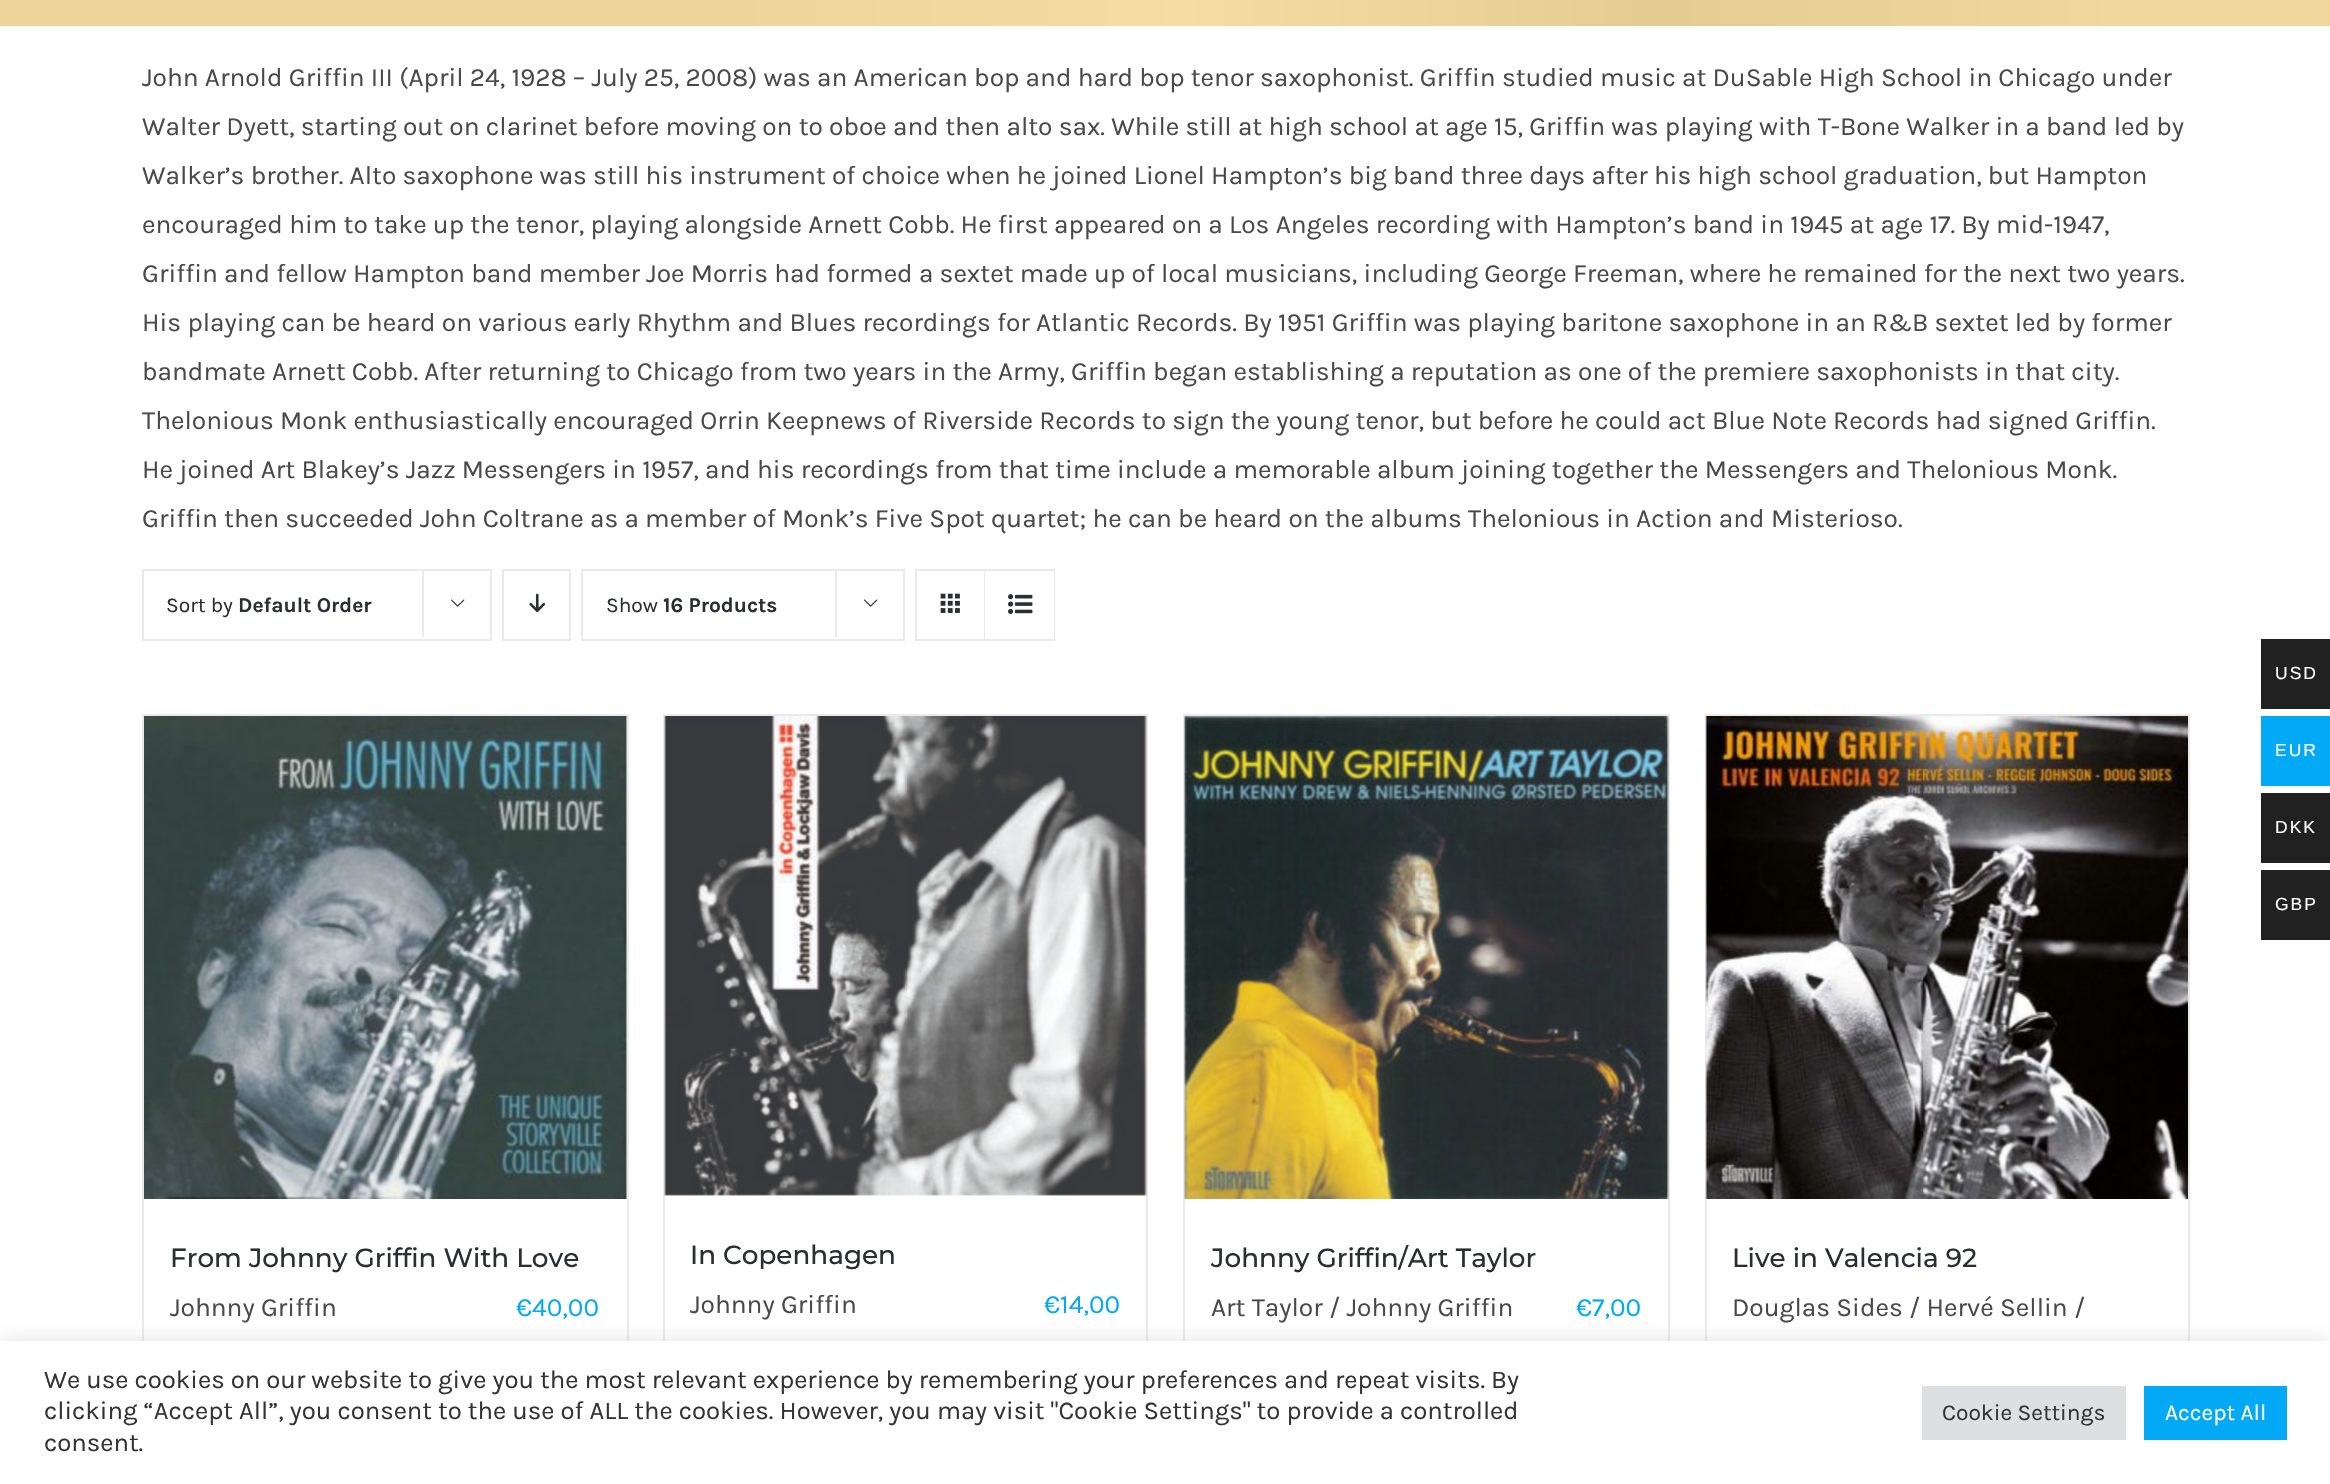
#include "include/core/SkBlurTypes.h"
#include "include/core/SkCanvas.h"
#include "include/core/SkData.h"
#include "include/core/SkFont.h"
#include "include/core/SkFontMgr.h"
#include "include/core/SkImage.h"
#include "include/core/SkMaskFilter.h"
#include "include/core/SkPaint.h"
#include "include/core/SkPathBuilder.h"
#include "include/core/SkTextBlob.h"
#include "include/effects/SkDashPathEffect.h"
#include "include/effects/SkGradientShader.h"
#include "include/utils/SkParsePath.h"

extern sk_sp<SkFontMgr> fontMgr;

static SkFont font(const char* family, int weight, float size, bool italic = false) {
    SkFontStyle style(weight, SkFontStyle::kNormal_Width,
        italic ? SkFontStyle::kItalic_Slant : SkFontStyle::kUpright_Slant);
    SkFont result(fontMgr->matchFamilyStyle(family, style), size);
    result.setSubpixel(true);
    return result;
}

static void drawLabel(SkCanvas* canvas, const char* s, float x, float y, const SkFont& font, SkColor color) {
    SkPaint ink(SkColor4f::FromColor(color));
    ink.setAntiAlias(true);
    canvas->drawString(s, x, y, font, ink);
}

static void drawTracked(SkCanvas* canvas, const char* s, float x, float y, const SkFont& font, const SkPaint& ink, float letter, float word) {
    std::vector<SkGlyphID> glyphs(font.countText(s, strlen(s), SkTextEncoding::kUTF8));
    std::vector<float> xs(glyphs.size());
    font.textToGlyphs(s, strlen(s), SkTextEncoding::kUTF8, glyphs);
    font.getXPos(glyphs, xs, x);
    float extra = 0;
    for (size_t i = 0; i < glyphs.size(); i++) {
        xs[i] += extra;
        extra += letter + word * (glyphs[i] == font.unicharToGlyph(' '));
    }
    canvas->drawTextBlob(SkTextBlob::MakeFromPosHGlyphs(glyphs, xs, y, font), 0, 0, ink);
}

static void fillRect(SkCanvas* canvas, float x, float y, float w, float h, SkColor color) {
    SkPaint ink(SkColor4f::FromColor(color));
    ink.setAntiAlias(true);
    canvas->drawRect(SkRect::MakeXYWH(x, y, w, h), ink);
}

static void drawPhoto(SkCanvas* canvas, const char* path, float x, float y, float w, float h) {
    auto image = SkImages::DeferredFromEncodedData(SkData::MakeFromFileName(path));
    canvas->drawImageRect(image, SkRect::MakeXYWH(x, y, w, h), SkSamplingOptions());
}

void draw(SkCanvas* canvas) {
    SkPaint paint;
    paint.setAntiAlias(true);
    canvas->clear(0xFFFFFFFF);
    drawPhoto(canvas, "assets/img1.png", 0, 0, 2330, 26);
    SkFont font1 = font("Karla", 400, 26.25f);
    drawLabel(canvas, "John Arnold Griffin III (April 24, 1928 – July 25, 2008) was an American bop and hard bop tenor saxophonist. Griffin studied music at DuSable High School in Chicago under", 142, 86, font1, 0xFF494949);
    drawLabel(canvas, "Walter Dyett, starting out on clarinet before moving on to oboe and then alto sax. While still at high school at age 15, Griffin was playing with T-Bone Walker in a band led by", 142, 135, font1, 0xFF494949);
    drawLabel(canvas, "Walker’s brother. Alto saxophone was still his instrument of choice when he joined Lionel Hampton’s big band three days after his high school graduation, but Hampton", 142, 184, font1, 0xFF494949);
    drawLabel(canvas, "encouraged him to take up the tenor, playing alongside Arnett Cobb. He first appeared on a Los Angeles recording with Hampton’s band in 1945 at age 17. By mid-1947,", 142, 233, font1, 0xFF494949);
    drawLabel(canvas, "Griffin and fellow Hampton band member Joe Morris had formed a sextet made up of local musicians, including George Freeman, where he remained for the next two years.", 142, 282, font1, 0xFF494949);
    drawLabel(canvas, "His playing can be heard on various early Rhythm and Blues recordings for Atlantic Records. By 1951 Griffin was playing baritone saxophone in an R&B sextet led by former", 142, 331, font1, 0xFF494949);
    drawLabel(canvas, "bandmate Arnett Cobb. After returning to Chicago from two years in the Army, Griffin began establishing a reputation as one of the premiere saxophonists in that city.", 142, 380, font1, 0xFF494949);
    drawLabel(canvas, "Thelonious Monk enthusiastically encouraged Orrin Keepnews of Riverside Records to sign the young tenor, but before he could act Blue Note Records had signed Griffin.", 142, 429, font1, 0xFF494949);
    drawLabel(canvas, "He joined Art Blakey’s Jazz Messengers in 1957, and his recordings from that time include a memorable album joining together the Messengers and Thelonious Monk.", 142, 478, font1, 0xFF494949);
    drawLabel(canvas, "Griffin then succeeded John Coltrane as a member of Monk’s Five Spot quartet; he can be heard on the albums Thelonious in Action and Misterioso.", 142, 527, font1, 0xFF494949);
    paint.setStroke(true);
    paint.setStrokeWidth(2);
    paint.setColor(0xFFEAEAEA);
    canvas->drawRect(SkRect::MakeXYWH(143, 570, 348, 70), paint);
    SkFont font2 = font("Karla", 400, 21);
    drawLabel(canvas, "Sort by", 166, 612, font2, 0xFF2B2E32);
    SkFont font3 = font("Karla", 700, 21);
    drawLabel(canvas, "Default Order", 238, 612, font3, 0xFF2B2E32);
    fillRect(canvas, 422, 569, 2, 68, 0xFFEAEAEA);
    drawPhoto(canvas, "assets/img2.png", 450, 599, 15, 8);
    canvas->drawRect(SkRect::MakeXYWH(503, 570, 67, 70), paint);
    drawPhoto(canvas, "assets/img3.png", 529, 593, 17, 19);
    canvas->drawRect(SkRect::MakeXYWH(582, 570, 322, 70), paint);
    drawLabel(canvas, "Show", 606, 612, font2, 0xFF2B2E32);
    drawLabel(canvas, "16 Products", 663, 612, font3, 0xFF2B2E32);
    fillRect(canvas, 835, 569, 2, 68, 0xFFEAEAEA);
    drawPhoto(canvas, "assets/img2.png", 863, 599, 15, 8);
    canvas->drawRect(SkRect::MakeXYWH(916, 570, 138, 70), paint);
    fillRect(canvas, 984, 571, 1, 68, 0xFFEAEAEA);
    drawPhoto(canvas, "assets/img4.png", 940, 593, 20, 20);
    fillRect(canvas, 1053, 571, 1, 68, 0xFFFFFFFF);
    drawPhoto(canvas, "assets/img5.png", 1008, 594, 25, 20);
    fillRect(canvas, 142, 714, 486, 2, 0xFFEAEAEA);
    fillRect(canvas, 627, 714, 2, 627, 0xFFEAEAEA);
    fillRect(canvas, 142, 714, 2, 627, 0xFFEAEAEA);
    drawPhoto(canvas, "assets/img6.png", 144, 716, 483, 483);
    SkFont font4 = font("Montserrat", 500, 26.25f);
    drawLabel(canvas, "From Johnny Griffin With Love", 170, 1267, font4, 0xFF2B2E32);
    drawLabel(canvas, "Johnny Griffin", 170, 1316, font1, 0xFF494949);
    drawLabel(canvas, "€40,00", 516, 1316, font1, 0xFF03A9F4);
    fillRect(canvas, 663, 714, 485, 2, 0xFFEAEAEA);
    fillRect(canvas, 1146, 714, 2, 627, 0xFFEAEAEA);
    fillRect(canvas, 663, 714, 2, 627, 0xFFEAEAEA);
    drawPhoto(canvas, "assets/img7.png", 664, 716, 483, 480);
    drawLabel(canvas, "In Copenhagen", 690, 1264, font4, 0xFF2B2E32);
    drawLabel(canvas, "Johnny Griffin", 690, 1313, font1, 0xFF494949);
    drawLabel(canvas, "€14,00", 1044, 1313, font1, 0xFF03A9F4);
    fillRect(canvas, 1183, 714, 487, 2, 0xFFEAEAEA);
    fillRect(canvas, 1668, 714, 2, 627, 0xFFEAEAEA);
    fillRect(canvas, 1183, 714, 2, 627, 0xFFEAEAEA);
    drawPhoto(canvas, "assets/img8.png", 1184, 716, 485, 483);
    drawLabel(canvas, "Johnny Griffin/Art Taylor", 1211, 1267, font4, 0xFF2B2E32);
    drawLabel(canvas, "Art Taylor / Johnny Griffin", 1211, 1316, font1, 0xFF494949);
    drawLabel(canvas, "€7,00", 1576, 1316, font1, 0xFF03A9F4);
    fillRect(canvas, 1705, 714, 484, 2, 0xFFEAEAEA);
    fillRect(canvas, 2188, 714, 2, 627, 0xFFEAEAEA);
    fillRect(canvas, 1705, 714, 2, 627, 0xFFEAEAEA);
    drawPhoto(canvas, "assets/img9.png", 1705, 716, 483, 483);
    drawLabel(canvas, "Live in Valencia 92", 1732, 1267, font4, 0xFF2B2E32);
    drawLabel(canvas, "Douglas Sides / Hervé Sellin /", 1732, 1316, font1, 0xFF494949);
    fillRect(canvas, 2261, 639, 69, 70, 0xFF212121);
    SkFont font5 = font("Liberation Sans", 400, 17.5f);
    paint.setStroke(false);
    paint.setColor(0xFFFFFFFF);
    drawTracked(canvas, "USD", 2275, 679, font5, paint, 2, 0);
    fillRect(canvas, 2261, 716, 69, 70, 0xFF03A9F4);
    drawTracked(canvas, "EUR", 2275, 756, font5, paint, 2, 0);
    fillRect(canvas, 2261, 793, 69, 70, 0xFF212121);
    drawTracked(canvas, "DKK", 2275, 833, font5, paint, 2, 0);
    fillRect(canvas, 2261, 870, 69, 70, 0xFF212121);
    drawTracked(canvas, "GBP", 2275, 910, font5, paint, 2, 0);
    paint.setColor(0x4DACABAB);
    paint.setMaskFilter(SkMaskFilter::MakeBlur(kNormal_SkBlurStyle, 9));
    canvas->drawRect(SkRect::MakeXYWH(0, 1339, 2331, 143), paint);
    paint.setMaskFilter(nullptr);
    fillRect(canvas, 0, 1341, 2330, 143, 0xFFFFFFFF);
    SkFont font6 = font("Karla", 400, 25.67f);
    drawLabel(canvas, "We use cookies on our website to give you the most relevant experience by remembering your preferences and repeat visits. By", 44, 1388, font6, 0xFF333333);
    drawLabel(canvas, "clicking “Accept All”, you consent to the use of ALL the cookies. However, you may visit \"Cookie Settings\" to provide a controlled", 44, 1419, font6, 0xFF333333);
    drawLabel(canvas, "consent.", 44, 1451, font6, 0xFF333333);
    fillRect(canvas, 1922, 1386, 204, 54, 0xFFDEDFE0);
    SkFont font7 = font("Karla", 400, 22.75f);
    drawLabel(canvas, "Cookie Settings", 1942, 1420, font7, 0xFF333333);
    fillRect(canvas, 2144, 1386, 143, 54, 0xFF03A9F4);
    drawLabel(canvas, "Accept All", 2165, 1420, font7, 0xFFFFFFFF);
}
